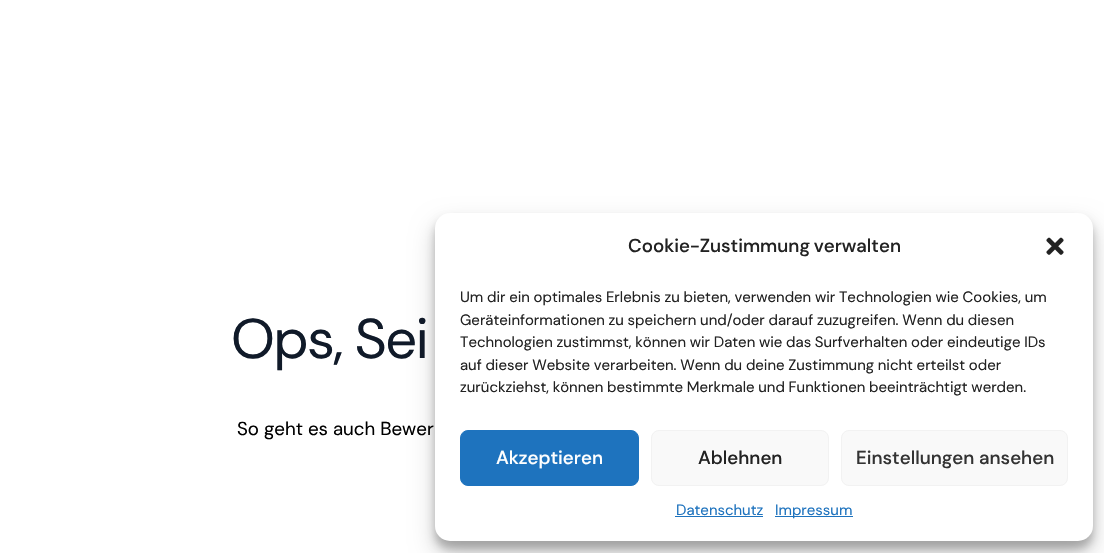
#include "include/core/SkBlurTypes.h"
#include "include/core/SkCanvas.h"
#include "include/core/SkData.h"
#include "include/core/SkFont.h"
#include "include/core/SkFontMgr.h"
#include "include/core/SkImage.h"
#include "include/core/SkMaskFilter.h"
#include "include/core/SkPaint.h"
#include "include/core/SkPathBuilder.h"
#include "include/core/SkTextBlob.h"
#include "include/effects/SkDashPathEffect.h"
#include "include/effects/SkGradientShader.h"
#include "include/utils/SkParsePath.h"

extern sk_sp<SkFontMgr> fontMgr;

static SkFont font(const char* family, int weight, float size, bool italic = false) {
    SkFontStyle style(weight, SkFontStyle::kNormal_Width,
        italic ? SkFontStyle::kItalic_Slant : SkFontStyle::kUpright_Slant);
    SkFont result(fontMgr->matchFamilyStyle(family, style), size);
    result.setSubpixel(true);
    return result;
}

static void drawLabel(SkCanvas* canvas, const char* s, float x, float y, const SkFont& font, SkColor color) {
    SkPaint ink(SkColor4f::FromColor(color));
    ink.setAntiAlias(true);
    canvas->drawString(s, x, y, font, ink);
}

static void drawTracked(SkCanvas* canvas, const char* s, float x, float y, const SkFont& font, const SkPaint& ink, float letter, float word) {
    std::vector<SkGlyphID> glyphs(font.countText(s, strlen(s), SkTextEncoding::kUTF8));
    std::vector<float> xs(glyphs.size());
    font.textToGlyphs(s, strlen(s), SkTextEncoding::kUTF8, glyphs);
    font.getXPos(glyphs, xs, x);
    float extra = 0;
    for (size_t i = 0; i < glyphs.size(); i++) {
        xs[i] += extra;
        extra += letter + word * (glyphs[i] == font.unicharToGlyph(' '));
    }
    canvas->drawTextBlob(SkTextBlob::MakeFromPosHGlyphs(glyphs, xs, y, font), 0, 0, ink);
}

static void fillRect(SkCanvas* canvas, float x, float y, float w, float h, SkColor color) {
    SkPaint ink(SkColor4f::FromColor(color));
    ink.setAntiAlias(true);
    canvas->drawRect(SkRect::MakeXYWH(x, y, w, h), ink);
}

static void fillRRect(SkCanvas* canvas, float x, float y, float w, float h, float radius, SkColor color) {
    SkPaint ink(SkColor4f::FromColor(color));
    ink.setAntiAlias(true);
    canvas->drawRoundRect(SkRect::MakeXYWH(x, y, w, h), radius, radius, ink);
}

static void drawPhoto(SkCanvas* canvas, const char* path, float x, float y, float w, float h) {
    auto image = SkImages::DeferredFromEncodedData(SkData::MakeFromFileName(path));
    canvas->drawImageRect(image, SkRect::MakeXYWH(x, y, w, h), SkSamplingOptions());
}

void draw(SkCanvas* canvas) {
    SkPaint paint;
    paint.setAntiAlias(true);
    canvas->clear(0xFFFFFFFF);
    SkFont font1 = font("DM Sans", 400, 56);
    paint.setColor(0xFF101A29);
    drawTracked(canvas, "Ops, Sei", 231, 358, font1, paint, -1.5f, -1);
    SkFont font2 = font("DM Sans", 400, 18.75f);
    drawLabel(canvas, "So geht es auch Bewer", 237, 435, font2, 0xFF000000);
    paint.setColor(0x3B000000);
    paint.setMaskFilter(SkMaskFilter::MakeBlur(kNormal_SkBlurStyle, 4));
    canvas->drawRoundRect(SkRect::MakeXYWH(435, 220, 658, 329), 15, 15, paint);
    paint.setMaskFilter(nullptr);
    paint.setColor(0x30000000);
    paint.setMaskFilter(SkMaskFilter::MakeBlur(kNormal_SkBlurStyle, 12.5f));
    canvas->drawRoundRect(SkRect::MakeXYWH(435, 225, 658, 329), 15, 15, paint);
    paint.setMaskFilter(nullptr);
    fillRRect(canvas, 435, 213, 658, 328, 15, 0xFFFFFFFF);
    SkFont font3 = font("DM Sans", 500, 18.75f);
    paint.setColor(0xFF222222);
    drawTracked(canvas, "Cookie-Zustimmung verwalten", 628, 252, font3, paint, 0, -1);
    drawPhoto(canvas, "assets/img1.png", 1046, 237, 18, 18);
    SkFont font4 = font("DM Sans", 400, 15);
    drawTracked(canvas, "Um dir ein optimales Erlebnis zu bieten, verwenden wir Technologien wie Cookies, um", 460, 302, font4, paint, 0, -0.25f);
    drawTracked(canvas, "Geräteinformationen zu speichern und/oder darauf zuzugreifen. Wenn du diesen", 460, 325, font4, paint, 0, -0.25f);
    drawTracked(canvas, "Technologien zustimmst, können wir Daten wie das Surfverhalten oder eindeutige IDs", 460, 347, font4, paint, 0, -0.25f);
    drawTracked(canvas, "auf dieser Website verarbeiten. Wenn du deine Zustimmung nicht erteilst oder", 460, 370, font4, paint, 0, -0.25f);
    drawTracked(canvas, "zurückziehst, können bestimmte Merkmale und Funktionen beeinträchtigt werden.", 460, 392, font4, paint, 0, -0.25f);
    paint.setColor(0xFF1E73BE);
    canvas->drawRoundRect(SkRect::MakeXYWH(460.5f, 430.5f, 178, 55), 7.5f, 7.5f, paint);
    paint.setStroke(true);
    paint.setStrokeWidth(1);
    canvas->drawRoundRect(SkRect::MakeXYWH(460.5f, 430.5f, 178, 55), 7.5f, 7.5f, paint);
    drawLabel(canvas, "Akzeptieren", 496, 464, font3, 0xFFFFFFFF);
    paint.setStroke(false);
    paint.setColor(0xFFF9F9F9);
    canvas->drawRoundRect(SkRect::MakeXYWH(651.5f, 430.5f, 177, 55), 7.5f, 7.5f, paint);
    paint.setStroke(true);
    paint.setColor(0xFFF2F2F2);
    canvas->drawRoundRect(SkRect::MakeXYWH(651.5f, 430.5f, 177, 55), 7.5f, 7.5f, paint);
    drawLabel(canvas, "Ablehnen", 698, 464, font3, 0xFF222222);
    paint.setStroke(false);
    paint.setColor(0xFFF9F9F9);
    canvas->drawRoundRect(SkRect::MakeXYWH(841.5f, 430.5f, 226, 55), 7.5f, 7.5f, paint);
    paint.setStroke(true);
    paint.setColor(0xFFF2F2F2);
    canvas->drawRoundRect(SkRect::MakeXYWH(841.5f, 430.5f, 226, 55), 7.5f, 7.5f, paint);
    drawLabel(canvas, "Einstellungen ansehen", 856, 464, font3, 0xFF333333);
    drawLabel(canvas, "Datenschutz", 676, 515, font4, 0xFF1E73BE);
    fillRect(canvas, 675, 516, 88, 1, 0xFF1E73BE);
    fillRect(canvas, 775, 516, 78, 1, 0xFF1E73BE);
    drawLabel(canvas, "Impressum", 775, 515, font4, 0xFF1E73BE);
}
